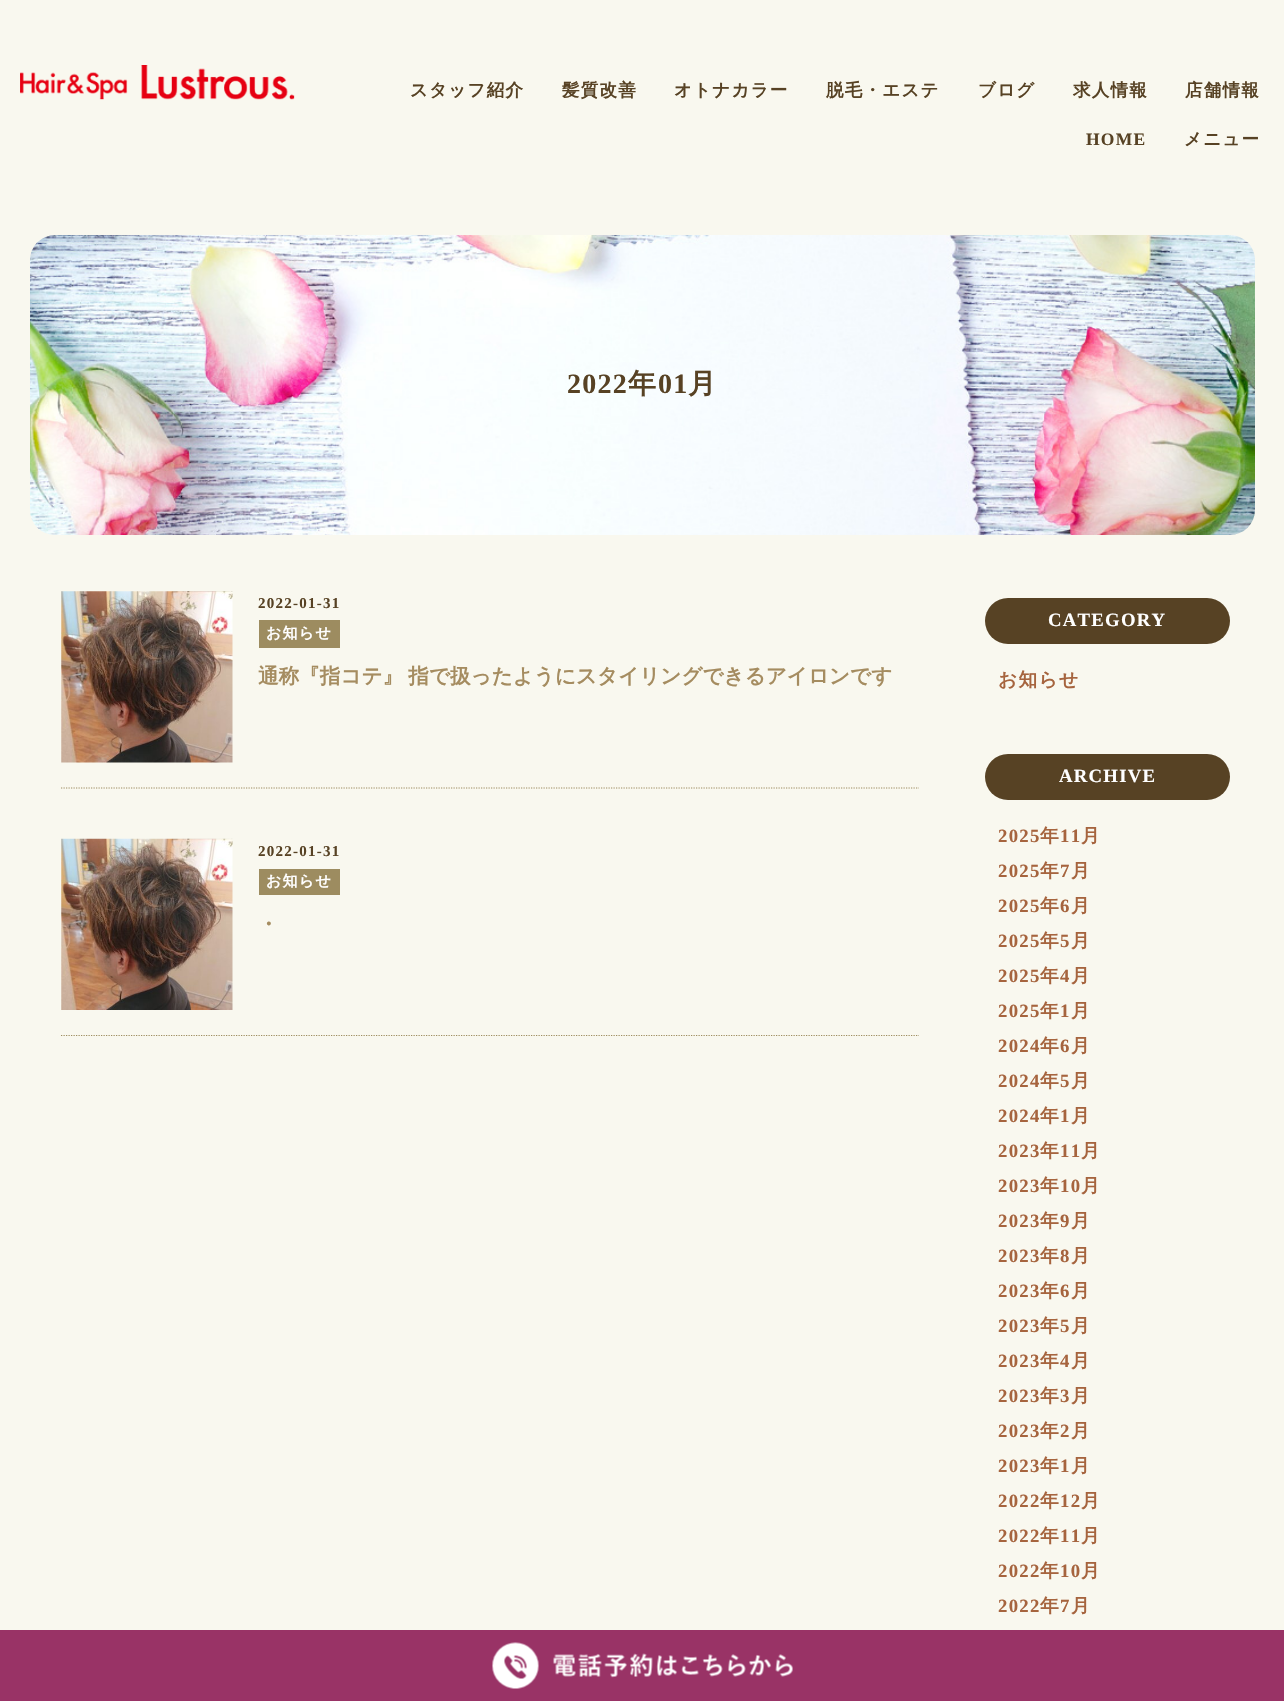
#include "include/core/SkBlurTypes.h"
#include "include/core/SkCanvas.h"
#include "include/core/SkData.h"
#include "include/core/SkFont.h"
#include "include/core/SkFontMgr.h"
#include "include/core/SkImage.h"
#include "include/core/SkMaskFilter.h"
#include "include/core/SkPaint.h"
#include "include/core/SkPathBuilder.h"
#include "include/core/SkTextBlob.h"
#include "include/effects/SkDashPathEffect.h"
#include "include/effects/SkGradientShader.h"
#include "include/utils/SkParsePath.h"

extern sk_sp<SkFontMgr> fontMgr;

static SkFont font(const char* family, int weight, float size, bool italic = false) {
    SkFontStyle style(weight, SkFontStyle::kNormal_Width,
        italic ? SkFontStyle::kItalic_Slant : SkFontStyle::kUpright_Slant);
    SkFont result(fontMgr->matchFamilyStyle(family, style), size);
    result.setSubpixel(true);
    return result;
}

static void drawLabel(SkCanvas* canvas, const char* s, float x, float y, const SkFont& font, SkColor color) {
    SkPaint ink(SkColor4f::FromColor(color));
    ink.setAntiAlias(true);
    canvas->drawString(s, x, y, font, ink);
}

static void drawTracked(SkCanvas* canvas, const char* s, float x, float y, const SkFont& font, const SkPaint& ink, float letter, float word) {
    std::vector<SkGlyphID> glyphs(font.countText(s, strlen(s), SkTextEncoding::kUTF8));
    std::vector<float> xs(glyphs.size());
    font.textToGlyphs(s, strlen(s), SkTextEncoding::kUTF8, glyphs);
    font.getXPos(glyphs, xs, x);
    float extra = 0;
    for (size_t i = 0; i < glyphs.size(); i++) {
        xs[i] += extra;
        extra += letter + word * (glyphs[i] == font.unicharToGlyph(' '));
    }
    canvas->drawTextBlob(SkTextBlob::MakeFromPosHGlyphs(glyphs, xs, y, font), 0, 0, ink);
}

static void fillRect(SkCanvas* canvas, float x, float y, float w, float h, SkColor color) {
    SkPaint ink(SkColor4f::FromColor(color));
    ink.setAntiAlias(true);
    canvas->drawRect(SkRect::MakeXYWH(x, y, w, h), ink);
}

static void fillRRect(SkCanvas* canvas, float x, float y, float w, float h, float radius, SkColor color) {
    SkPaint ink(SkColor4f::FromColor(color));
    ink.setAntiAlias(true);
    canvas->drawRoundRect(SkRect::MakeXYWH(x, y, w, h), radius, radius, ink);
}

static void drawPhoto(SkCanvas* canvas, const char* path, float x, float y, float w, float h) {
    auto image = SkImages::DeferredFromEncodedData(SkData::MakeFromFileName(path));
    canvas->drawImageRect(image, SkRect::MakeXYWH(x, y, w, h), SkSamplingOptions());
}

static SkPath parsePath(const char* data, bool evenOdd = false) {
    SkPath result = *SkParsePath::FromSVGString(data);
    if (evenOdd) result.setFillType(SkPathFillType::kEvenOdd);
    return result;
}

void draw(SkCanvas* canvas) {
    SkPaint paint;
    paint.setAntiAlias(true);
    canvas->clear(0xFFF9F8EF);
    drawPhoto(canvas, "assets/img1.png", 20, 65, 275, 35);
    SkFont font1 = font("WenQuanYi Zen Hei", 700, 17.5f);
    paint.setColor(0xFF574224);
    drawTracked(canvas, "スタッフ紹介", 410, 96, font1, paint, 1.25f, 0);
    drawTracked(canvas, "髪質改善", 562, 96, font1, paint, 1.25f, 0);
    drawTracked(canvas, "オトナカラー", 674, 96, font1, paint, 1.25f, 0);
    drawTracked(canvas, "脱毛・エステ", 826, 96, font1, paint, 1.25f, 0);
    drawTracked(canvas, "ブログ", 978, 96, font1, paint, 1.25f, 0);
    drawTracked(canvas, "求人情報", 1073, 96, font1, paint, 1.25f, 0);
    drawTracked(canvas, "店舗情報", 1185, 96, font1, paint, 1.25f, 0);
    SkFont font2 = font("Liberation Serif", 700, 17.5f);
    drawTracked(canvas, "HOME", 1086, 145, font2, paint, 1.25f, 0);
    drawTracked(canvas, "メニュー", 1184, 145, font1, paint, 1.25f, 0);
    drawPhoto(canvas, "assets/img2.png", 30, 235, 1225, 300);
    SkFont font3 = font("Liberation Serif", 700, 28);
    drawTracked(canvas, "2022", 567, 393, font3, paint, 1.25f, 0);
    SkFont font4 = font("WenQuanYi Zen Hei", 700, 28);
    drawTracked(canvas, "年", 628, 393, font4, paint, 1.25f, 0);
    drawTracked(canvas, "01", 658, 393, font3, paint, 1.25f, 0);
    drawTracked(canvas, "月", 688, 393, font4, paint, 1.25f, 0);
    paint.setStroke(true);
    paint.setStrokeWidth(1.2f);
    paint.setColor(0xFF9D8C60);
    paint.setPathEffect(SkDashPathEffect::Make({{1.25f, 1.25f}}, 0));
    canvas->drawPath(parsePath("M61 788H919"), paint);
    paint.setPathEffect(nullptr);
    drawPhoto(canvas, "assets/img3.png", 61, 591, 172, 172);
    SkFont font5 = font("Liberation Serif", 700, 15);
    paint.setStroke(false);
    paint.setColor(0xFF574224);
    drawTracked(canvas, "2022-01-31", 258, 608, font5, paint, 1.25f, 0);
    fillRect(canvas, 259, 620, 81, 28, 0xFF9D8C60);
    SkFont font6 = font("WenQuanYi Zen Hei", 700, 15);
    paint.setColor(0xFFFFFFFF);
    drawTracked(canvas, "お知らせ", 266, 638, font6, paint, 1.25f, 0);
    SkFont font7 = font("WenQuanYi Zen Hei", 700, 20.6f);
    paint.setColor(0xFFA58C60);
    drawTracked(canvas, "通称『指コテ』 指で扱ったようにスタイリングできるアイロンです", 258, 683, font7, paint, 0, -1);
    paint.setStroke(true);
    paint.setColor(0xFF9D8C60);
    paint.setPathEffect(SkDashPathEffect::Make({{1.25f, 1.25f}}, 0));
    canvas->drawPath(parsePath("M61 1035.5H919"), paint);
    paint.setPathEffect(nullptr);
    drawPhoto(canvas, "assets/img4.png", 61, 838, 172, 172);
    paint.setStroke(false);
    paint.setColor(0xFF574224);
    drawTracked(canvas, "2022-01-31", 258, 856, font5, paint, 1.25f, 0);
    fillRect(canvas, 259, 869, 81, 26, 0xFF9D8C60);
    paint.setColor(0xFFFFFFFF);
    drawTracked(canvas, "お知らせ", 266, 886, font6, paint, 1.25f, 0);
    drawLabel(canvas, "・", 258, 931, font7, 0xFFA58C60);
    fillRRect(canvas, 985, 598, 245, 46, 23, 0xFF574224);
    SkFont font8 = font("Liberation Serif", 700, 18.75f);
    drawTracked(canvas, "CATEGORY", 1048, 626, font8, paint, 1.25f, 0);
    SkFont font9 = font("WenQuanYi Zen Hei", 700, 18.75f);
    paint.setColor(0xFFA6643E);
    drawTracked(canvas, "お知らせ", 998, 686, font9, paint, 1.25f, 0);
    fillRRect(canvas, 985, 754, 245, 46, 23, 0xFF574224);
    paint.setColor(0xFFFFFFFF);
    drawTracked(canvas, "ARCHIVE", 1059, 782, font8, paint, 1.25f, 0);
    paint.setColor(0xFFA6643E);
    drawTracked(canvas, "2025", 998, 842, font8, paint, 1.25f, 0);
    drawTracked(canvas, "年", 1040, 842, font9, paint, 1.25f, 0);
    drawTracked(canvas, "11", 1060, 842, font8, paint, 1.25f, 0);
    drawTracked(canvas, "月", 1081, 842, font9, paint, 1.25f, 0);
    drawTracked(canvas, "2025", 998, 877, font8, paint, 1.25f, 0);
    drawTracked(canvas, "年", 1040, 877, font9, paint, 1.25f, 0);
    drawTracked(canvas, "7", 1060, 877, font8, paint, 1.25f, 0);
    drawTracked(canvas, "月", 1071, 877, font9, paint, 1.25f, 0);
    drawTracked(canvas, "2025", 998, 912, font8, paint, 1.25f, 0);
    drawTracked(canvas, "年", 1040, 912, font9, paint, 1.25f, 0);
    drawTracked(canvas, "6", 1060, 912, font8, paint, 1.25f, 0);
    drawTracked(canvas, "月", 1071, 912, font9, paint, 1.25f, 0);
    drawTracked(canvas, "2025", 998, 947, font8, paint, 1.25f, 0);
    drawTracked(canvas, "年", 1040, 947, font9, paint, 1.25f, 0);
    drawTracked(canvas, "5", 1060, 947, font8, paint, 1.25f, 0);
    drawTracked(canvas, "月", 1071, 947, font9, paint, 1.25f, 0);
    drawTracked(canvas, "2025", 998, 982, font8, paint, 1.25f, 0);
    drawTracked(canvas, "年", 1040, 982, font9, paint, 1.25f, 0);
    drawTracked(canvas, "4", 1060, 982, font8, paint, 1.25f, 0);
    drawTracked(canvas, "月", 1071, 982, font9, paint, 1.25f, 0);
    drawTracked(canvas, "2025", 998, 1017, font8, paint, 1.25f, 0);
    drawTracked(canvas, "年", 1040, 1017, font9, paint, 1.25f, 0);
    drawTracked(canvas, "1", 1060, 1017, font8, paint, 1.25f, 0);
    drawTracked(canvas, "月", 1071, 1017, font9, paint, 1.25f, 0);
    drawTracked(canvas, "2024", 998, 1052, font8, paint, 1.25f, 0);
    drawTracked(canvas, "年", 1040, 1052, font9, paint, 1.25f, 0);
    drawTracked(canvas, "6", 1060, 1052, font8, paint, 1.25f, 0);
    drawTracked(canvas, "月", 1071, 1052, font9, paint, 1.25f, 0);
    drawTracked(canvas, "2024", 998, 1087, font8, paint, 1.25f, 0);
    drawTracked(canvas, "年", 1040, 1087, font9, paint, 1.25f, 0);
    drawTracked(canvas, "5", 1060, 1087, font8, paint, 1.25f, 0);
    drawTracked(canvas, "月", 1071, 1087, font9, paint, 1.25f, 0);
    drawTracked(canvas, "2024", 998, 1122, font8, paint, 1.25f, 0);
    drawTracked(canvas, "年", 1040, 1122, font9, paint, 1.25f, 0);
    drawTracked(canvas, "1", 1060, 1122, font8, paint, 1.25f, 0);
    drawTracked(canvas, "月", 1071, 1122, font9, paint, 1.25f, 0);
    drawTracked(canvas, "2023", 998, 1157, font8, paint, 1.25f, 0);
    drawTracked(canvas, "年", 1040, 1157, font9, paint, 1.25f, 0);
    drawTracked(canvas, "11", 1060, 1157, font8, paint, 1.25f, 0);
    drawTracked(canvas, "月", 1081, 1157, font9, paint, 1.25f, 0);
    drawTracked(canvas, "2023", 998, 1192, font8, paint, 1.25f, 0);
    drawTracked(canvas, "年", 1040, 1192, font9, paint, 1.25f, 0);
    drawTracked(canvas, "10", 1060, 1192, font8, paint, 1.25f, 0);
    drawTracked(canvas, "月", 1081, 1192, font9, paint, 1.25f, 0);
    drawTracked(canvas, "2023", 998, 1227, font8, paint, 1.25f, 0);
    drawTracked(canvas, "年", 1040, 1227, font9, paint, 1.25f, 0);
    drawTracked(canvas, "9", 1060, 1227, font8, paint, 1.25f, 0);
    drawTracked(canvas, "月", 1071, 1227, font9, paint, 1.25f, 0);
    drawTracked(canvas, "2023", 998, 1262, font8, paint, 1.25f, 0);
    drawTracked(canvas, "年", 1040, 1262, font9, paint, 1.25f, 0);
    drawTracked(canvas, "8", 1060, 1262, font8, paint, 1.25f, 0);
    drawTracked(canvas, "月", 1071, 1262, font9, paint, 1.25f, 0);
    drawTracked(canvas, "2023", 998, 1297, font8, paint, 1.25f, 0);
    drawTracked(canvas, "年", 1040, 1297, font9, paint, 1.25f, 0);
    drawTracked(canvas, "6", 1060, 1297, font8, paint, 1.25f, 0);
    drawTracked(canvas, "月", 1071, 1297, font9, paint, 1.25f, 0);
    drawTracked(canvas, "2023", 998, 1332, font8, paint, 1.25f, 0);
    drawTracked(canvas, "年", 1040, 1332, font9, paint, 1.25f, 0);
    drawTracked(canvas, "5", 1060, 1332, font8, paint, 1.25f, 0);
    drawTracked(canvas, "月", 1071, 1332, font9, paint, 1.25f, 0);
    drawTracked(canvas, "2023", 998, 1367, font8, paint, 1.25f, 0);
    drawTracked(canvas, "年", 1040, 1367, font9, paint, 1.25f, 0);
    drawTracked(canvas, "4", 1060, 1367, font8, paint, 1.25f, 0);
    drawTracked(canvas, "月", 1071, 1367, font9, paint, 1.25f, 0);
    drawTracked(canvas, "2023", 998, 1402, font8, paint, 1.25f, 0);
    drawTracked(canvas, "年", 1040, 1402, font9, paint, 1.25f, 0);
    drawTracked(canvas, "3", 1060, 1402, font8, paint, 1.25f, 0);
    drawTracked(canvas, "月", 1071, 1402, font9, paint, 1.25f, 0);
    drawTracked(canvas, "2023", 998, 1437, font8, paint, 1.25f, 0);
    drawTracked(canvas, "年", 1040, 1437, font9, paint, 1.25f, 0);
    drawTracked(canvas, "2", 1060, 1437, font8, paint, 1.25f, 0);
    drawTracked(canvas, "月", 1071, 1437, font9, paint, 1.25f, 0);
    drawTracked(canvas, "2023", 998, 1472, font8, paint, 1.25f, 0);
    drawTracked(canvas, "年", 1040, 1472, font9, paint, 1.25f, 0);
    drawTracked(canvas, "1", 1060, 1472, font8, paint, 1.25f, 0);
    drawTracked(canvas, "月", 1071, 1472, font9, paint, 1.25f, 0);
    drawTracked(canvas, "2022", 998, 1507, font8, paint, 1.25f, 0);
    drawTracked(canvas, "年", 1040, 1507, font9, paint, 1.25f, 0);
    drawTracked(canvas, "12", 1060, 1507, font8, paint, 1.25f, 0);
    drawTracked(canvas, "月", 1081, 1507, font9, paint, 1.25f, 0);
    drawTracked(canvas, "2022", 998, 1542, font8, paint, 1.25f, 0);
    drawTracked(canvas, "年", 1040, 1542, font9, paint, 1.25f, 0);
    drawTracked(canvas, "11", 1060, 1542, font8, paint, 1.25f, 0);
    drawTracked(canvas, "月", 1081, 1542, font9, paint, 1.25f, 0);
    drawTracked(canvas, "2022", 998, 1577, font8, paint, 1.25f, 0);
    drawTracked(canvas, "年", 1040, 1577, font9, paint, 1.25f, 0);
    drawTracked(canvas, "10", 1060, 1577, font8, paint, 1.25f, 0);
    drawTracked(canvas, "月", 1081, 1577, font9, paint, 1.25f, 0);
    drawTracked(canvas, "2022", 998, 1612, font8, paint, 1.25f, 0);
    drawTracked(canvas, "年", 1040, 1612, font9, paint, 1.25f, 0);
    drawTracked(canvas, "7", 1060, 1612, font8, paint, 1.25f, 0);
    drawTracked(canvas, "月", 1071, 1612, font9, paint, 1.25f, 0);
    fillRect(canvas, 0, 1630, 1284, 71, 0xFF993366);
    drawPhoto(canvas, "assets/img5.png", 492, 1642, 301, 47);
}
